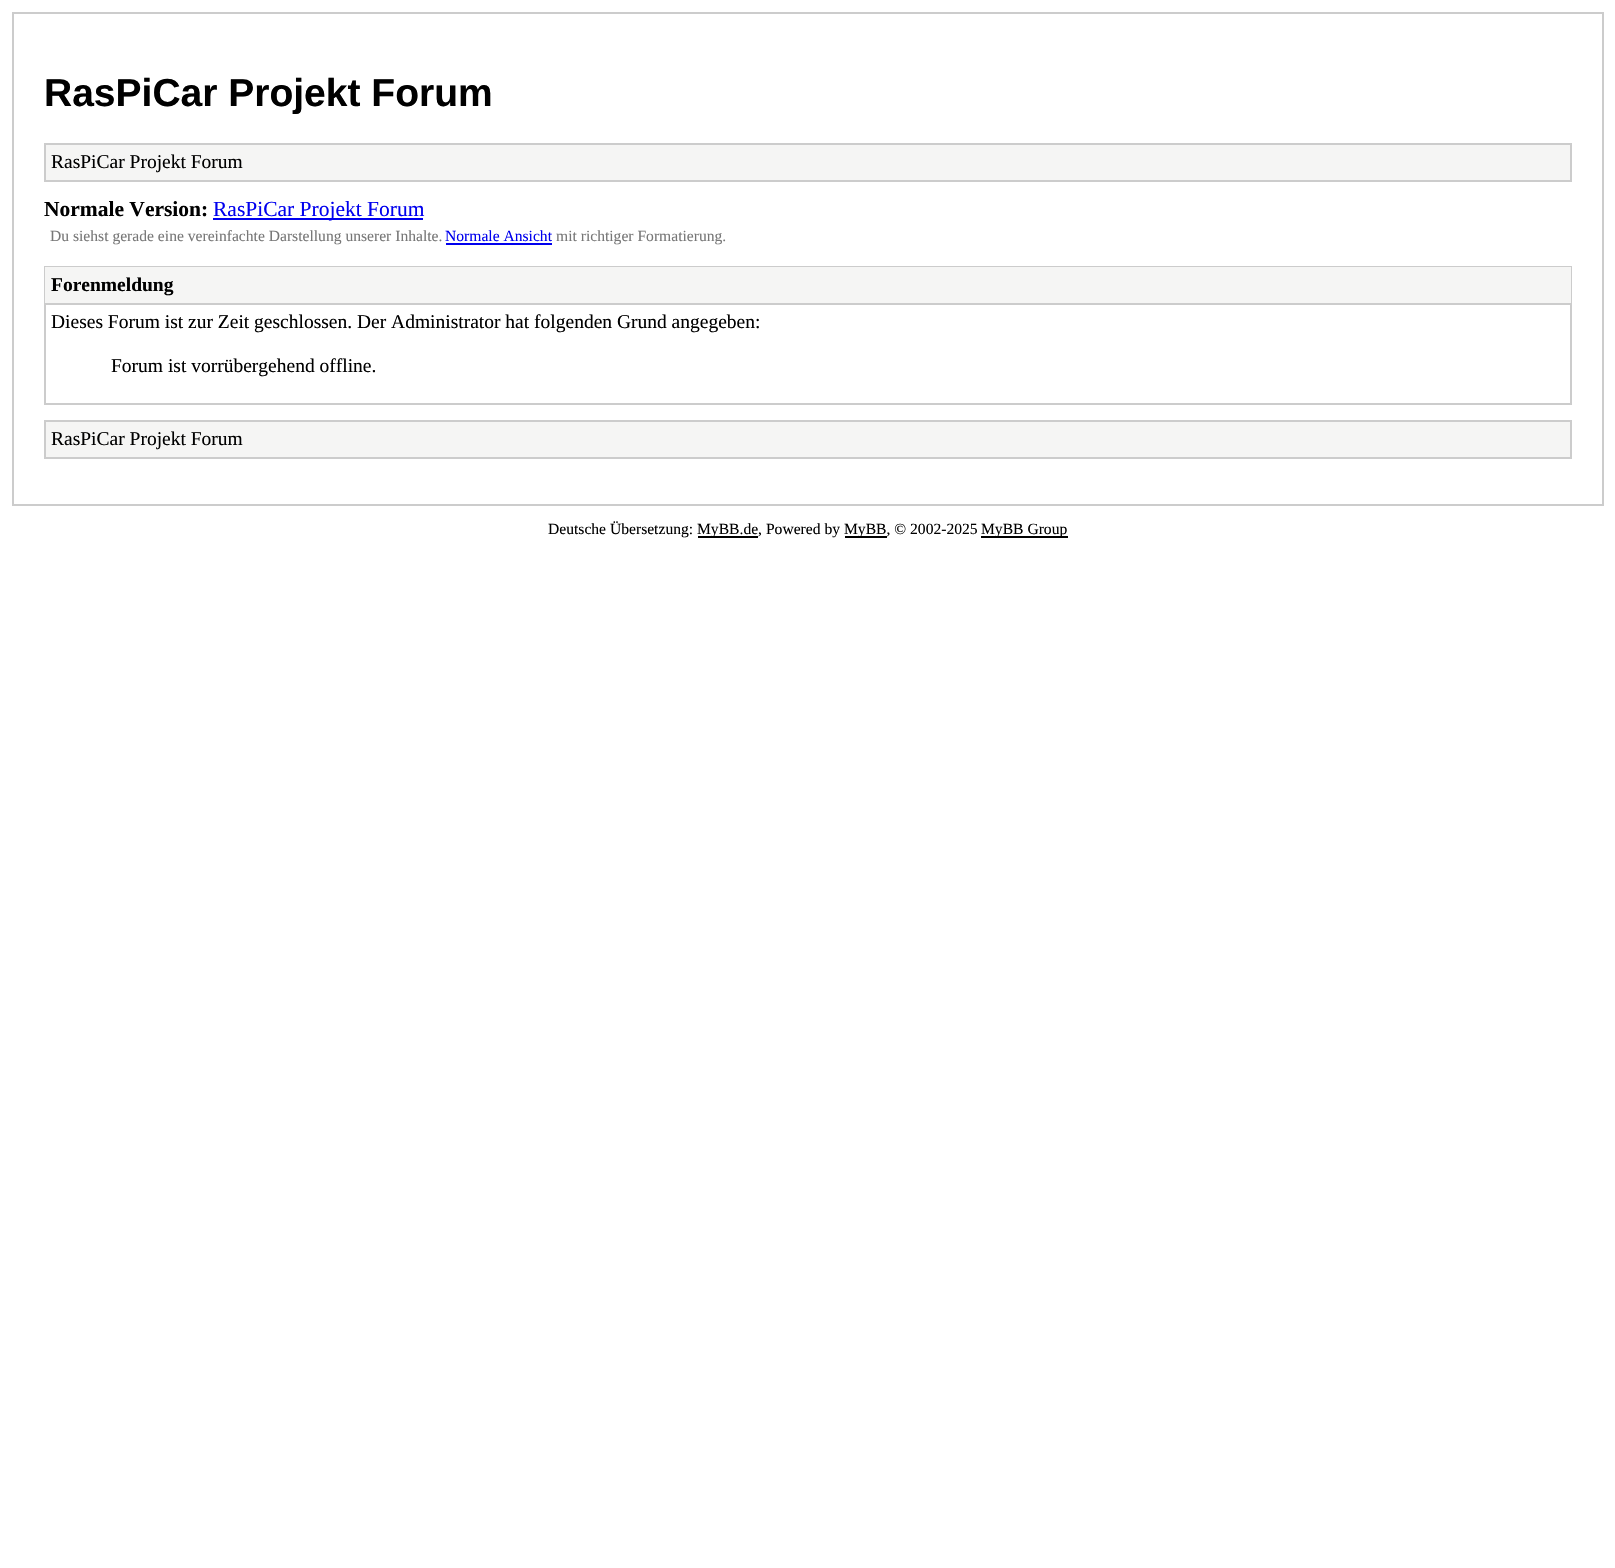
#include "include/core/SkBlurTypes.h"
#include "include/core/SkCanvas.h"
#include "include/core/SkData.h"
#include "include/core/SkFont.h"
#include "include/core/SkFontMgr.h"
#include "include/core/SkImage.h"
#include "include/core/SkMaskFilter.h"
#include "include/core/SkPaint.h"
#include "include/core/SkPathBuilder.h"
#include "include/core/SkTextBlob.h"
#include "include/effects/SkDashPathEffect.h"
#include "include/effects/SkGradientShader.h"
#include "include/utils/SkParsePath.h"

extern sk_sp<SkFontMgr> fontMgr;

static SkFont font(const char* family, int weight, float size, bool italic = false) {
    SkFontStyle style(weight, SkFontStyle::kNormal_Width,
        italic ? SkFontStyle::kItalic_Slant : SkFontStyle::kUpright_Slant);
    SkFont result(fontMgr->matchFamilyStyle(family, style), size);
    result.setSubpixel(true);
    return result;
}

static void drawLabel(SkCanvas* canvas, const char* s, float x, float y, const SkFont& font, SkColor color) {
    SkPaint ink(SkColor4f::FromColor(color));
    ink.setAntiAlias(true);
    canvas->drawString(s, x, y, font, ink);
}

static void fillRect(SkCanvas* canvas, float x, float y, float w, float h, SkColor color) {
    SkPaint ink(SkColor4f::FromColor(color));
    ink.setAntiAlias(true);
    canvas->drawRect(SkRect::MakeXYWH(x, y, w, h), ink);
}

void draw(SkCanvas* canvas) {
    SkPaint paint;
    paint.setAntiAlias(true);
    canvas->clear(0xFFFFFFFF);
    paint.setStroke(true);
    paint.setStrokeWidth(2);
    paint.setColor(0xFFCCCCCC);
    canvas->drawRect(SkRect::MakeXYWH(13, 13, 1590, 492), paint);
    SkFont font1 = font("Liberation Sans", 700, 39);
    drawLabel(canvas, "RasPiCar Projekt Forum", 44, 106, font1, 0xFF000000);
    paint.setStroke(false);
    paint.setColor(0xFFF5F5F4);
    canvas->drawRect(SkRect::MakeXYWH(45, 144, 1526, 37), paint);
    paint.setStroke(true);
    paint.setColor(0xFFCCCCCC);
    canvas->drawRect(SkRect::MakeXYWH(45, 144, 1526, 37), paint);
    SkFont font2 = font("Liberation Serif", 400, 19.5f);
    drawLabel(canvas, "RasPiCar Projekt Forum", 51, 168, font2, 0xFF000000);
    SkFont font3 = font("Liberation Serif", 700, 21.5f);
    drawLabel(canvas, "Normale Version:", 44, 216, font3, 0xFF000000);
    fillRect(canvas, 213, 218, 210, 2, 0xFF0000EE);
    SkFont font4 = font("Liberation Serif", 400, 21.5f);
    drawLabel(canvas, "RasPiCar Projekt Forum", 213, 216, font4, 0xFF0000EE);
    SkFont font5 = font("Liberation Serif", 400, 15.6f);
    drawLabel(canvas, "Du siehst gerade eine vereinfachte Darstellung unserer Inhalte.", 50, 241, font5, 0xFF777777);
    drawLabel(canvas, "Normale Ansicht", 445, 241, font5, 0xFF0000EE);
    fillRect(canvas, 446, 243, 106, 2, 0xFF0000EE);
    drawLabel(canvas, "mit richtiger Formatierung.", 556, 241, font5, 0xFF777777);
    canvas->drawRect(SkRect::MakeXYWH(45, 267, 1526, 137), paint);
    fillRect(canvas, 45, 267, 1526, 36, 0xFFF5F5F4);
    fillRect(canvas, 45, 303, 1526, 2, 0xFFCCCCCC);
    SkFont font6 = font("Liberation Serif", 700, 19.5f);
    drawLabel(canvas, "Forenmeldung", 51, 291, font6, 0xFF000000);
    drawLabel(canvas, "Dieses Forum ist zur Zeit geschlossen. Der Administrator hat folgenden Grund angegeben:", 51, 328, font2, 0xFF000000);
    drawLabel(canvas, "Forum ist vorrübergehend offline.", 111, 372, font2, 0xFF000000);
    paint.setStroke(false);
    paint.setColor(0xFFF5F5F4);
    canvas->drawRect(SkRect::MakeXYWH(45, 421, 1526, 37), paint);
    paint.setStroke(true);
    paint.setColor(0xFFCCCCCC);
    canvas->drawRect(SkRect::MakeXYWH(45, 421, 1526, 37), paint);
    drawLabel(canvas, "RasPiCar Projekt Forum", 51, 445, font2, 0xFF000000);
    drawLabel(canvas, "Deutsche Übersetzung:", 548, 534, font5, 0xFF000000);
    fillRect(canvas, 698, 536, 60, 2, 0xFF000000);
    drawLabel(canvas, "MyBB.de, Powered by", 697, 534, font5, 0xFF000000);
    fillRect(canvas, 845, 536, 42, 2, 0xFF000000);
    drawLabel(canvas, "MyBB, © 2002-2025", 844, 534, font5, 0xFF000000);
    fillRect(canvas, 981, 536, 87, 2, 0xFF000000);
    drawLabel(canvas, "MyBB Group", 981, 534, font5, 0xFF000000);
}
